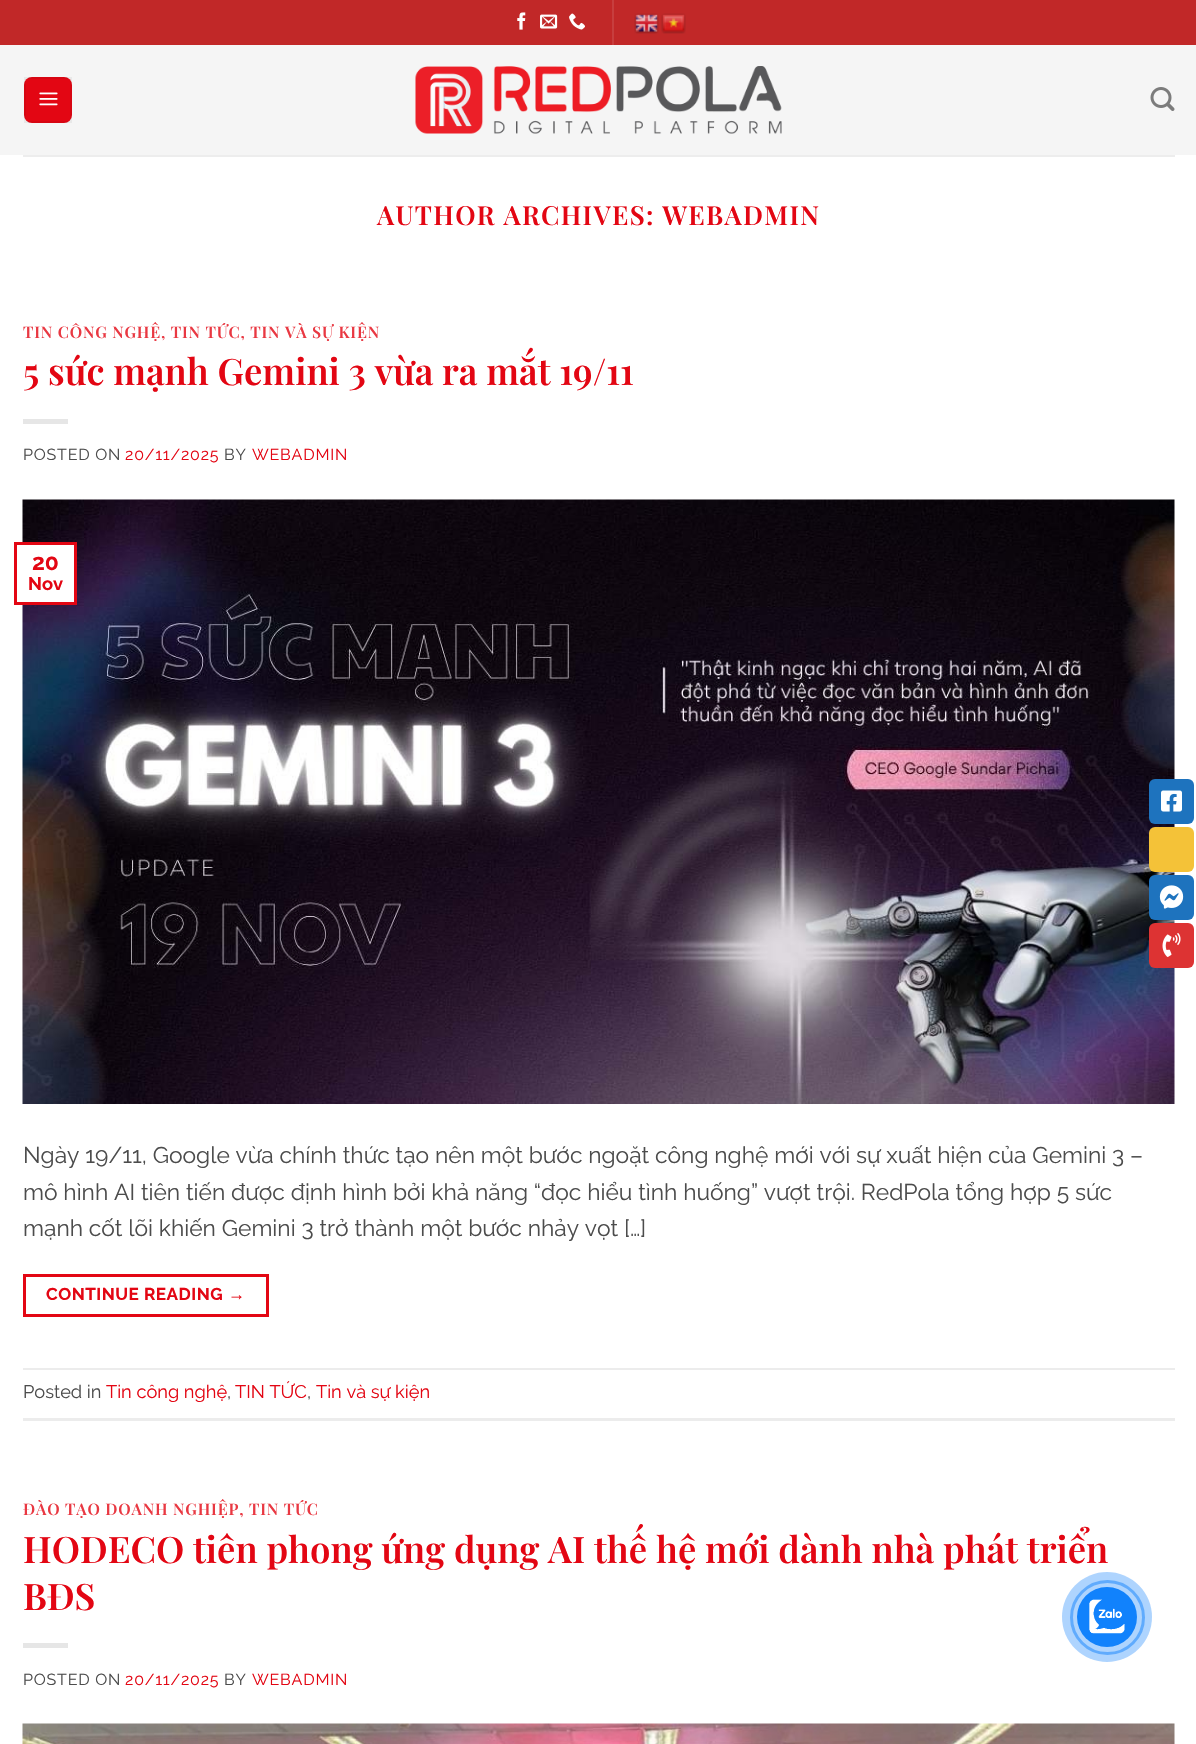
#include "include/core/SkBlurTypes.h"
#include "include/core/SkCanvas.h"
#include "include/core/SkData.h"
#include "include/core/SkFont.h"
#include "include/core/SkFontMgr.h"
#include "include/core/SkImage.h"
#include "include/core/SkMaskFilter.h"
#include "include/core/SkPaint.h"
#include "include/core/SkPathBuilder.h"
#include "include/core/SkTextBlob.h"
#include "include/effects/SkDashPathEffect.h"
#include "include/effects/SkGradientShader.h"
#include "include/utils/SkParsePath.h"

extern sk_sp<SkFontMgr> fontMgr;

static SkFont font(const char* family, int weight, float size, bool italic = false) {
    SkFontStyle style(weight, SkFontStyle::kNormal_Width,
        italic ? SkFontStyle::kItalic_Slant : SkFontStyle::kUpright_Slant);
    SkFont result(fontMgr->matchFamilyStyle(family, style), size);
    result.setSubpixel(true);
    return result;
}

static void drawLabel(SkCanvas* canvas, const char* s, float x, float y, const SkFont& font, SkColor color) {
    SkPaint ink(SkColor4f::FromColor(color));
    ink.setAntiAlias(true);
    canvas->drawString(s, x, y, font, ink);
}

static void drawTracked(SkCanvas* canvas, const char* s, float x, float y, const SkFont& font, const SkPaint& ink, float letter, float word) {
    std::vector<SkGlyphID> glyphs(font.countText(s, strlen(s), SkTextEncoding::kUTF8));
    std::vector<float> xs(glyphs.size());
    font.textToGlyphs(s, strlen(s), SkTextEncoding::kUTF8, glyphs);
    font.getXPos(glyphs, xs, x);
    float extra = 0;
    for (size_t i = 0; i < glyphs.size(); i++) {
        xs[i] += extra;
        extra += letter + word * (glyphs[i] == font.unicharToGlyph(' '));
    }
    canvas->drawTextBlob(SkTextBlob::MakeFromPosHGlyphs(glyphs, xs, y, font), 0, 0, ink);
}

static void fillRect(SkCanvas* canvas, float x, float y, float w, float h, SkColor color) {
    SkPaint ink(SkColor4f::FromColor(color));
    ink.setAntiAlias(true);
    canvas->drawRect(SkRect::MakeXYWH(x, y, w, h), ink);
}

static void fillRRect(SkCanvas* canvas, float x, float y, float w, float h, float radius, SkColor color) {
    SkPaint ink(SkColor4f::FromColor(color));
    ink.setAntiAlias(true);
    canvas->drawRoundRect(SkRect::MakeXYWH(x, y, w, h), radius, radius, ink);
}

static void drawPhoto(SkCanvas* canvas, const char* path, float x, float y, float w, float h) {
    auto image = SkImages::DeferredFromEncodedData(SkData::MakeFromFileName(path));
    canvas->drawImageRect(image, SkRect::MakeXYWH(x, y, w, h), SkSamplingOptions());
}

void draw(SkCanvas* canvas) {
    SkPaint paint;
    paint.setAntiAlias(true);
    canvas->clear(0xFFFFFFFF);
    fillRect(canvas, 0, 0, 1196, 45, 0xFFC12828);
    drawPhoto(canvas, "assets/img1.png", 517, 12, 9, 18);
    drawPhoto(canvas, "assets/img2.png", 540, 14, 18, 15);
    drawPhoto(canvas, "assets/img3.png", 569, 13, 16, 17);
    fillRect(canvas, 612, 0, 2, 45, 0xFFC73E3E);
    drawPhoto(canvas, "assets/img4.png", 634, 13, 25, 21);
    drawPhoto(canvas, "assets/img5.png", 661, 13, 25, 21);
    fillRect(canvas, 0, 45, 1196, 110, 0xFFF5F5F5);
    fillRRect(canvas, 24, 77, 48, 46, 8, 0xFFE30613);
    paint.setStroke(true);
    paint.setStrokeWidth(2);
    paint.setColor(0x0D000000);
    canvas->drawRect(SkRect::MakeXYWH(25, 78, 46, 44), paint);
    drawPhoto(canvas, "assets/img6.png", 39, 92, 19, 14);
    drawPhoto(canvas, "assets/img7.png", 415, 66, 367, 68);
    drawPhoto(canvas, "assets/img8.png", 1150, 87, 25, 24);
    fillRect(canvas, 23, 155, 1152, 2, 0xFFEDEDED);
    SkFont font1 = font("Playfair Display", 600, 26.25f);
    paint.setStroke(false);
    paint.setColor(0xFFE30613);
    drawTracked(canvas, "AUTHOR ARCHIVES: WEBADMIN", 377, 225, font1, paint, 1.3f, 0);
    SkFont font2 = font("Playfair Display", 600, 16);
    paint.setColor(0xFFE93842);
    drawTracked(canvas, "TIN CÔNG NGHỆ, TIN TỨC, TIN VÀ SỰ KIỆN", 23, 338, font2, paint, 0.8f, 0);
    SkFont font3 = font("Playfair Display", 600, 36.5f);
    drawLabel(canvas, "5 sức mạnh Gemini 3 vừa ra mắt 19/11", 23, 385, font3, 0xFFE30613);
    fillRect(canvas, 23, 419, 45, 5, 0xFFE6E6E6);
    SkFont font4 = font("Raleway", 400, 16);
    paint.setColor(0xFF4C4C4C);
    drawTracked(canvas, "POSTED ON", 23, 460, font4, paint, 0.8f, 0);
    paint.setColor(0xFFE30613);
    drawTracked(canvas, "20/11/2025", 125, 460, font4, paint, 0.8f, 0);
    paint.setColor(0xFF4C4C4C);
    drawTracked(canvas, "BY", 224, 460, font4, paint, 0.8f, 0);
    paint.setColor(0xFFE30613);
    drawTracked(canvas, "WEBADMIN", 252, 460, font4, paint, 0.8f, 0);
    drawPhoto(canvas, "assets/img9.png", 22, 499, 1153, 605);
    fillRect(canvas, 22, 545, 52, 57, 0xFFFFFFFF);
    paint.setStroke(true);
    paint.setStrokeWidth(3);
    canvas->drawRect(SkRect::MakeXYWH(15.5f, 543.5f, 60, 60), paint);
    SkFont font5 = font("Raleway", 700, 22.8f);
    drawLabel(canvas, "20", 32, 570, font5, 0xFFE30613);
    SkFont font6 = font("Raleway", 700, 18.25f);
    drawLabel(canvas, "Nov", 28, 590, font6, 0xFFE30613);
    SkFont font7 = font("Raleway", 400, 22.8f);
    drawLabel(canvas, "Ngày 19/11, Google vừa chính thức tạo nên một bước ngoặt công nghệ mới với sự xuất hiện của Gemini 3 –", 23, 1163, font7, 0xFF4C4C4C);
    drawLabel(canvas, "mô hình AI tiên tiến được định hình bởi khả năng “đọc hiểu tình huống” vượt trội. RedPola tổng hợp 5 sức", 23, 1200, font7, 0xFF4C4C4C);
    drawLabel(canvas, "mạnh cốt lõi khiến Gemini 3 trở thành một bước nhảy vọt […]", 23, 1236, font7, 0xFF4C4C4C);
    canvas->drawRect(SkRect::MakeXYWH(24.5f, 1275.5f, 243, 40), paint);
    SkFont font8 = font("Raleway", 700, 17.1f);
    paint.setStroke(false);
    drawTracked(canvas, "CONTINUE READING", 46, 1300, font8, paint, 0.5f, 0);
    SkFont font9 = font("Liberation Sans", 700, 17.1f);
    drawTracked(canvas, "→", 228, 1300, font9, paint, 0.5f, 0);
    fillRect(canvas, 23, 1368, 1152, 2, 0xFFECECEC);
    fillRect(canvas, 23, 1418, 1152, 3, 0xFFECECEC);
    SkFont font10 = font("Raleway", 400, 18.25f);
    drawLabel(canvas, "Posted in", 23, 1398, font10, 0xFF4C4C4C);
    drawLabel(canvas, "Tin công nghệ", 106, 1398, font10, 0xFFE30613);
    drawLabel(canvas, ",", 227, 1398, font10, 0xFF4C4C4C);
    drawLabel(canvas, "TIN TỨC", 235, 1398, font10, 0xFFE30613);
    drawLabel(canvas, ",", 307, 1398, font10, 0xFF4C4C4C);
    drawLabel(canvas, "Tin và sự kiện", 316, 1398, font10, 0xFFE30613);
    paint.setColor(0xFFE93842);
    drawTracked(canvas, "ĐÀO TẠO DOANH NGHIỆP, TIN TỨC", 23, 1515, font2, paint, 0.8f, 0);
    drawLabel(canvas, "HODECO tiên phong ứng dụng AI thế hệ mới dành nhà phát triển", 23, 1563, font3, 0xFFE30613);
    drawLabel(canvas, "BĐS", 23, 1610, font3, 0xFFE30613);
    fillRect(canvas, 23, 1643, 45, 5, 0xFFE6E6E6);
    paint.setColor(0xFF4C4C4C);
    drawTracked(canvas, "POSTED ON", 23, 1685, font4, paint, 0.8f, 0);
    paint.setColor(0xFFE30613);
    drawTracked(canvas, "20/11/2025", 125, 1685, font4, paint, 0.8f, 0);
    paint.setColor(0xFF4C4C4C);
    drawTracked(canvas, "BY", 224, 1685, font4, paint, 0.8f, 0);
    paint.setColor(0xFFE30613);
    drawTracked(canvas, "WEBADMIN", 252, 1685, font4, paint, 0.8f, 0);
    drawPhoto(canvas, "assets/img10.png", 22, 1723, 1153, 21);
    fillRRect(canvas, 1149, 779, 45, 45, 6, 0xFF1E73BE);
    drawPhoto(canvas, "assets/img11.png", 1161, 790, 21, 22);
    fillRRect(canvas, 1149, 827, 45, 45, 6, 0xFFF4C238);
    fillRRect(canvas, 1149, 875, 45, 45, 6, 0xFF1E73BE);
    drawPhoto(canvas, "assets/img12.png", 1159, 885, 25, 24);
    fillRRect(canvas, 1149, 923, 45, 45, 6, 0xFFDD3333);
    drawPhoto(canvas, "assets/img13.png", 1162, 933, 19, 24);
    paint.setStroke(true);
    paint.setColor(0xFF88C1FE);
    canvas->drawCircle(1107.5f, 1617.5f, 36, paint);
    paint.setStroke(false);
    paint.setColor(0x571182FC);
    canvas->drawCircle(1107, 1617, 45, paint);
    paint.setColor(0xFF1182FC);
    canvas->drawCircle(1107, 1617, 30, paint);
    drawPhoto(canvas, "assets/img14.png", 1089, 1599, 36, 35);
}
